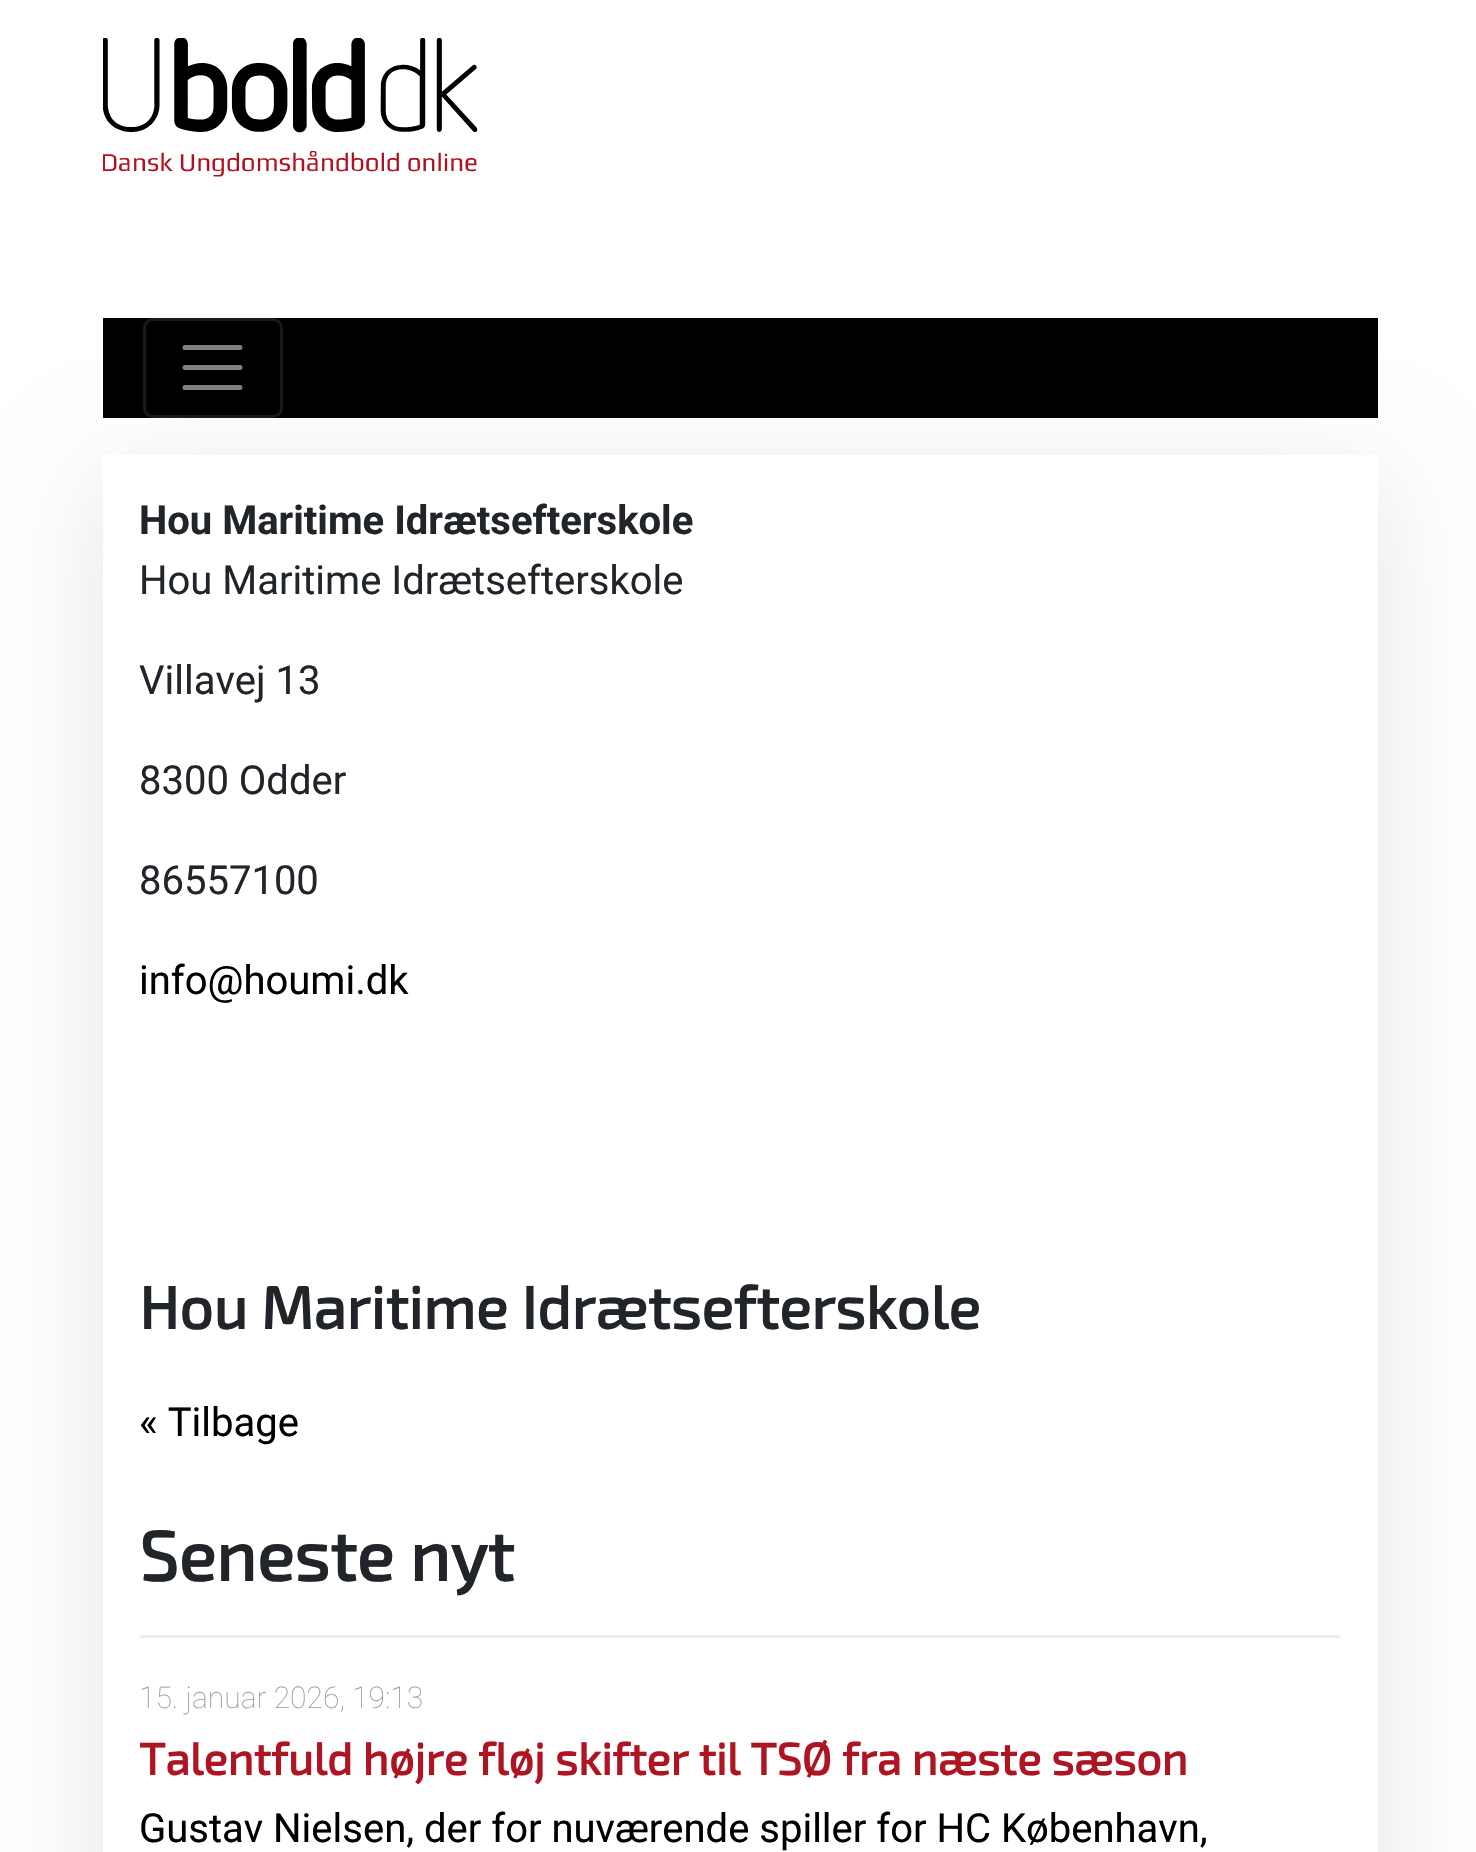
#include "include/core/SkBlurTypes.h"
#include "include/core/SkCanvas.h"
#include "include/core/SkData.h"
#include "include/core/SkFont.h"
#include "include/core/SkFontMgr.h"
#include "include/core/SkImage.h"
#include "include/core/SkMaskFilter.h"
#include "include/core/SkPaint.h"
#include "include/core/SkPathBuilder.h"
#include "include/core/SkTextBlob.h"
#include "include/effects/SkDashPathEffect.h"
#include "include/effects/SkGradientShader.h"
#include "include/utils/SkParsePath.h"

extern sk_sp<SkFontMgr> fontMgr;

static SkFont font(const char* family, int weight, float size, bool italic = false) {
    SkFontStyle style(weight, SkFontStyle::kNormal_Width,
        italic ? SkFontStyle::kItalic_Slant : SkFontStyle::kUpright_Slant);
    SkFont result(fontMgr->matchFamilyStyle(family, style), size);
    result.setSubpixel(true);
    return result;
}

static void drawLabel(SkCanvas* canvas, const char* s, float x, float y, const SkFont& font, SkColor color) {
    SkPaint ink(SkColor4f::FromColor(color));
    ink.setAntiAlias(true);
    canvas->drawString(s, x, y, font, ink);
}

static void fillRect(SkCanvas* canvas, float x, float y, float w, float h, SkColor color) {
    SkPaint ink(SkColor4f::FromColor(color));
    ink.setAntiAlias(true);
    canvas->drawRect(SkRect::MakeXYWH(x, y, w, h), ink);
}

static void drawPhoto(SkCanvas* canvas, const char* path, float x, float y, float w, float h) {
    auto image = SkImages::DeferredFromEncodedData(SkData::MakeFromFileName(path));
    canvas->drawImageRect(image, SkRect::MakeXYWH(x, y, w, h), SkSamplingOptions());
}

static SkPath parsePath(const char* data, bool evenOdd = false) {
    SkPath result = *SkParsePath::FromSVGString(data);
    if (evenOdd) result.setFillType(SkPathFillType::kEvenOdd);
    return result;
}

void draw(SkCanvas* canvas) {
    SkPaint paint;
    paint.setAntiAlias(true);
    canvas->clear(0xFFFFFFFF);
    drawPhoto(canvas, "assets/img1.png", 103, 38, 375, 139);
    paint.setColor(0x1A000000);
    paint.setMaskFilter(SkMaskFilter::MakeBlur(kNormal_SkBlurStyle, 50));
    canvas->drawRect(SkRect::MakeXYWH(103, 480, 1275, 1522), paint);
    paint.setMaskFilter(nullptr);
    fillRect(canvas, 103, 318, 1275, 100, 0xFF000000);
    paint.setStroke(true);
    paint.setStrokeWidth(3);
    paint.setColor(0xFF1A1A1A);
    canvas->drawRoundRect(SkRect::MakeXYWH(144.5f, 319.5f, 137, 97), 8.5f, 8.5f, paint);
    paint.setStrokeWidth(5);
    paint.setStrokeCap(SkPaint::kRound_Cap);
    paint.setColor(0xFF808080);
    canvas->drawPath(parsePath("M185 347.5H240M185 367.5H240M185 387.5H240"), paint);
    fillRect(canvas, 103, 455, 1275, 1397, 0xFFFFFFFF);
    SkFont font1 = font("Roboto", 700, 40);
    drawLabel(canvas, "Hou Maritime Idrætsefterskole", 139, 534, font1, 0xFF212529);
    SkFont font2 = font("Roboto", 400, 40);
    drawLabel(canvas, "Hou Maritime Idrætsefterskole", 139, 594, font2, 0xFF212529);
    drawLabel(canvas, "Villavej 13", 139, 694, font2, 0xFF212529);
    drawLabel(canvas, "8300 Odder", 139, 794, font2, 0xFF212529);
    drawLabel(canvas, "86557100", 139, 894, font2, 0xFF212529);
    drawLabel(canvas, "info@houmi.dk", 139, 994, font2, 0xFF000000);
    SkFont font3 = font("Exo 2", 700, 60);
    drawLabel(canvas, "Hou Maritime Idrætsefterskole", 139, 1329, font3, 0xFF212529);
    drawLabel(canvas, "« Tilbage", 139, 1436, font2, 0xFF000000);
    fillRect(canvas, 140, 1635, 1200, 3, 0xFFEEEEEE);
    SkFont font4 = font("Exo 2", 700, 70);
    drawLabel(canvas, "Seneste nyt", 139, 1581, font4, 0xFF212529);
    SkFont font5 = font("Roboto", 100, 30);
    drawLabel(canvas, "15. januar 2026, 19:13", 139, 1708, font5, 0xFF999999);
    SkFont font6 = font("Exo 2", 700, 45);
    drawLabel(canvas, "Talentfuld højre fløj skifter til TSØ fra næste sæson", 139, 1775, font6, 0xFFAF1423);
    drawLabel(canvas, "Gustav Nielsen, der for nuværende spiller for HC København,", 139, 1842, font2, 0xFF000000);
}
